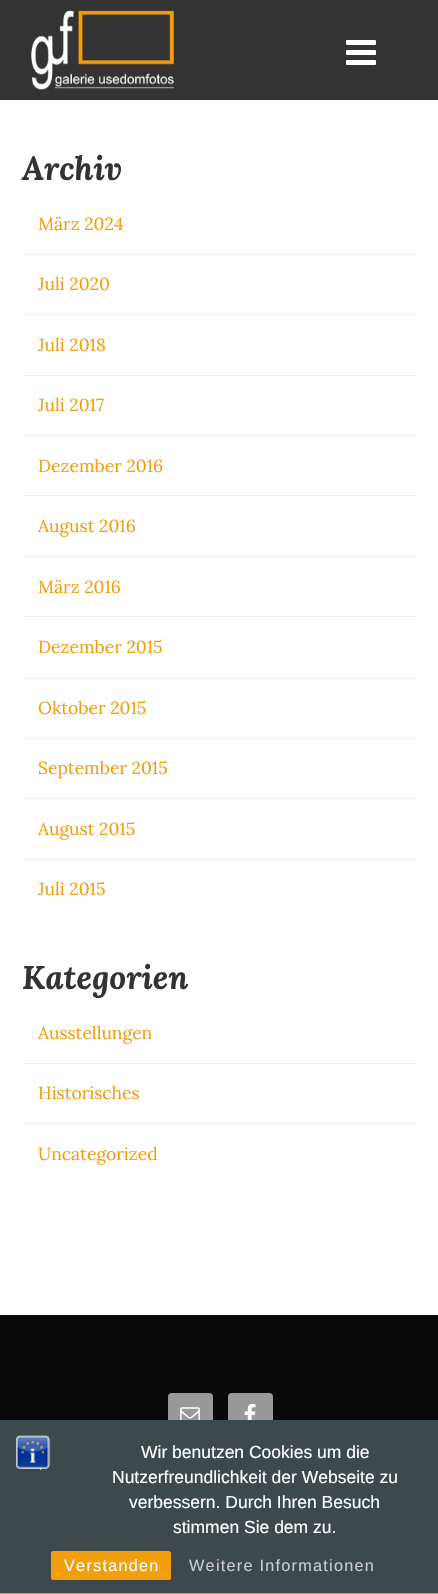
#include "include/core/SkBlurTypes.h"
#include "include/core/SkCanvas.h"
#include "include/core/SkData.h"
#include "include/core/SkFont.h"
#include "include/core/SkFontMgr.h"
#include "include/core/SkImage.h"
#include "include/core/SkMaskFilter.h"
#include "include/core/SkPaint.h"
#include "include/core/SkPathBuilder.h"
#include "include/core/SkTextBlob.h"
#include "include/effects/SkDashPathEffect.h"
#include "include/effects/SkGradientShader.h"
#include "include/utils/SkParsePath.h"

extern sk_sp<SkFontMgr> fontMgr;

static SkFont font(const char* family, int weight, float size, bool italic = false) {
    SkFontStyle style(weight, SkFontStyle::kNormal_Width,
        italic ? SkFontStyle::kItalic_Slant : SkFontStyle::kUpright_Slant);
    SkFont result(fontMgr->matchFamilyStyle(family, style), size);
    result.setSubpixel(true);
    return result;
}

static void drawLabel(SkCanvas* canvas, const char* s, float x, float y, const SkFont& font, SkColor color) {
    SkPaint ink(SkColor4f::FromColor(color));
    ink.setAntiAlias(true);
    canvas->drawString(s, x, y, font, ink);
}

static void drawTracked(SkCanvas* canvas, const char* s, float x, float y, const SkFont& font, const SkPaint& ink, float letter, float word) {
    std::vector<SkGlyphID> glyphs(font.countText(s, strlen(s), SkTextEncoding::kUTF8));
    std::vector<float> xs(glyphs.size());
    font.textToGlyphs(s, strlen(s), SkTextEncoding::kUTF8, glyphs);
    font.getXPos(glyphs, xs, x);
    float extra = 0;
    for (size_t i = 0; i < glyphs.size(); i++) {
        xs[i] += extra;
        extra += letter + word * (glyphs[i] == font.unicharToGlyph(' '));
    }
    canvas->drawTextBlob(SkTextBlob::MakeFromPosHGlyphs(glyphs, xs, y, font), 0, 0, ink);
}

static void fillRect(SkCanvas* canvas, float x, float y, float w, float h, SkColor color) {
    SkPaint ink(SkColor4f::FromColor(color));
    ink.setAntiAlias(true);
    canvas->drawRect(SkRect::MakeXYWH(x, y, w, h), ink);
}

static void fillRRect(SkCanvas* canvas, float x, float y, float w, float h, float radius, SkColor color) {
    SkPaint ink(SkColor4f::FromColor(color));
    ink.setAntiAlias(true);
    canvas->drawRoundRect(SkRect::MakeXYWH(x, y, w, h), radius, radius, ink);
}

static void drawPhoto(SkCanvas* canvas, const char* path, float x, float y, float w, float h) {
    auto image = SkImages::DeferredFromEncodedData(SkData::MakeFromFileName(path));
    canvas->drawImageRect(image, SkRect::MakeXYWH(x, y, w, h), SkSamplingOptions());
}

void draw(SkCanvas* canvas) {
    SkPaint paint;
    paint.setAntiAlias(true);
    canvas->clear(0xFF0A0909);
    fillRect(canvas, 0, 100, 438, 1215, 0xFFFFFFFF);
    fillRect(canvas, 0, 0, 438, 100, 0xFF333333);
    drawPhoto(canvas, "assets/img1.png", 31, 10, 143, 80);
    fillRRect(canvas, 346, 40, 30, 5, 1, 0xFFFFFFFF);
    fillRRect(canvas, 346, 50, 30, 5, 1, 0xFFFFFFFF);
    fillRRect(canvas, 346, 60, 30, 5, 1, 0xFFFFFFFF);
    SkFont font1 = font("Lora", 700, 33, true);
    drawLabel(canvas, "Archiv", 22, 180, font1, 0xFF333333);
    fillRect(canvas, 23, 254, 393, 1, 0xFFF0F0F0);
    SkFont font2 = font("Lora", 400, 17.5f);
    drawLabel(canvas, "März 2024", 38, 230, font2, 0xFFF29E0C);
    fillRect(canvas, 23, 314, 393, 1, 0xFFF0F0F0);
    drawLabel(canvas, "Juli 2020", 38, 290, font2, 0xFFF29E0C);
    fillRect(canvas, 23, 375, 393, 1, 0xFFF0F0F0);
    drawLabel(canvas, "Juli 2018", 38, 351, font2, 0xFFF29E0C);
    fillRect(canvas, 23, 435, 393, 1, 0xFFF0F0F0);
    drawLabel(canvas, "Juli 2017", 38, 411, font2, 0xFFF29E0C);
    fillRect(canvas, 23, 495, 393, 1, 0xFFF0F0F0);
    drawLabel(canvas, "Dezember 2016", 38, 472, font2, 0xFFF29E0C);
    fillRect(canvas, 23, 556, 393, 1, 0xFFF0F0F0);
    drawLabel(canvas, "August 2016", 38, 532, font2, 0xFFF29E0C);
    fillRect(canvas, 23, 616, 393, 1, 0xFFF0F0F0);
    drawLabel(canvas, "März 2016", 38, 593, font2, 0xFFF29E0C);
    fillRect(canvas, 23, 678, 393, 1, 0xFFF0F0F0);
    drawLabel(canvas, "Dezember 2015", 38, 653, font2, 0xFFF29E0C);
    fillRect(canvas, 23, 738, 393, 1, 0xFFF0F0F0);
    drawLabel(canvas, "Oktober 2015", 38, 714, font2, 0xFFF29E0C);
    fillRect(canvas, 23, 798, 393, 1, 0xFFF0F0F0);
    drawLabel(canvas, "September 2015", 38, 774, font2, 0xFFF29E0C);
    fillRect(canvas, 23, 859, 393, 1, 0xFFF0F0F0);
    drawLabel(canvas, "August 2015", 38, 835, font2, 0xFFF29E0C);
    drawLabel(canvas, "Juli 2015", 38, 895, font2, 0xFFF29E0C);
    drawLabel(canvas, "Kategorien", 22, 989, font1, 0xFF333333);
    fillRect(canvas, 23, 1063, 393, 1, 0xFFF0F0F0);
    drawLabel(canvas, "Ausstellungen", 38, 1039, font2, 0xFFF29E0C);
    fillRect(canvas, 23, 1123, 393, 1, 0xFFF0F0F0);
    drawLabel(canvas, "Historisches", 38, 1099, font2, 0xFFF29E0C);
    drawLabel(canvas, "Uncategorized", 38, 1160, font2, 0xFFF29E0C);
    fillRRect(canvas, 168, 1393, 45, 45, 4, 0xFF999999);
    drawPhoto(canvas, "assets/img2.png", 180, 1407, 20, 13);
    fillRRect(canvas, 228, 1393, 45, 45, 4, 0xFF999999);
    drawPhoto(canvas, "assets/img3.png", 244, 1404, 12, 16);
    fillRect(canvas, 0, 1420, 438, 173, 0xFF3E494D);
    fillRect(canvas, 0, 1593, 438, 1, 0xFFF29F0D);
    drawPhoto(canvas, "assets/img4.png", 16, 1435, 35, 36);
    SkFont font3 = font("Liberation Sans", 400, 17.5f);
    drawLabel(canvas, "Wir benutzen Cookies um die", 141, 1458, font3, 0xFFFFFFFF);
    drawLabel(canvas, "Nutzerfreundlichkeit der Webseite zu", 112, 1483, font3, 0xFFFFFFFF);
    drawLabel(canvas, "verbessern. Durch Ihren Besuch", 129, 1508, font3, 0xFFFFFFFF);
    drawLabel(canvas, "stimmen Sie dem zu.", 173, 1533, font3, 0xFFFFFFFF);
    fillRRect(canvas, 51, 1551, 120, 29, 2.5f, 0xFFF29F0D);
    SkFont font4 = font("Liberation Sans", 400, 16.25f);
    paint.setColor(0xFFFFFFFF);
    drawTracked(canvas, "Verstanden", 64, 1571, font4, paint, 1.25f, 0);
    paint.setColor(0xFFCCCCCC);
    drawTracked(canvas, "Weitere Informationen", 189, 1571, font4, paint, 1.25f, 0);
}
